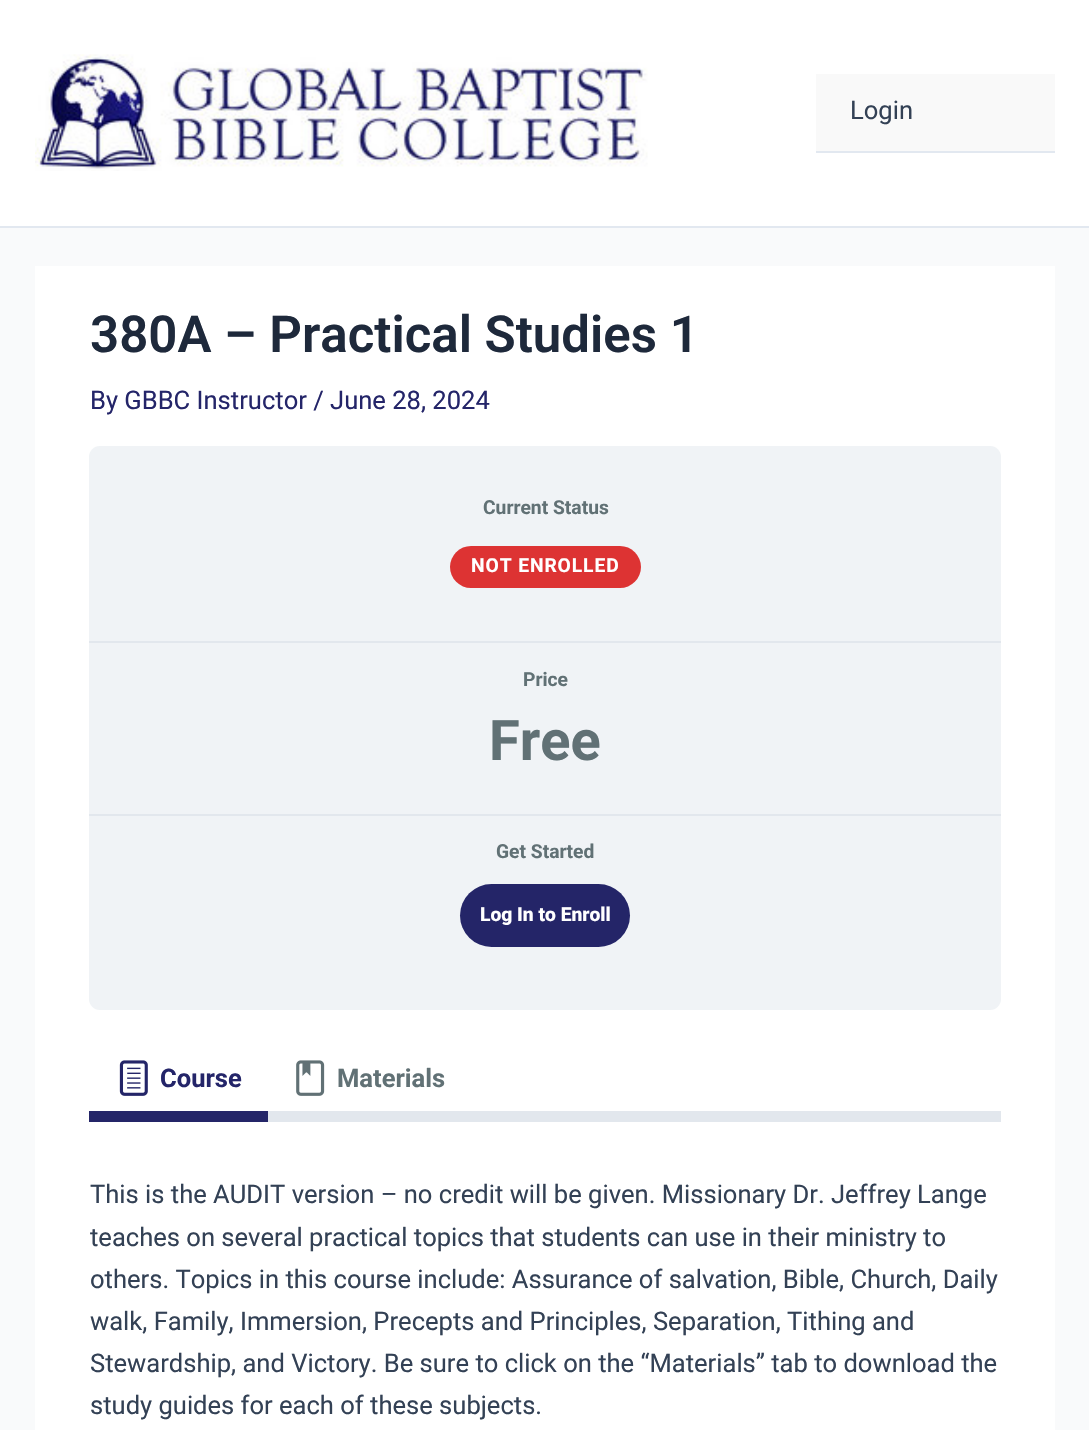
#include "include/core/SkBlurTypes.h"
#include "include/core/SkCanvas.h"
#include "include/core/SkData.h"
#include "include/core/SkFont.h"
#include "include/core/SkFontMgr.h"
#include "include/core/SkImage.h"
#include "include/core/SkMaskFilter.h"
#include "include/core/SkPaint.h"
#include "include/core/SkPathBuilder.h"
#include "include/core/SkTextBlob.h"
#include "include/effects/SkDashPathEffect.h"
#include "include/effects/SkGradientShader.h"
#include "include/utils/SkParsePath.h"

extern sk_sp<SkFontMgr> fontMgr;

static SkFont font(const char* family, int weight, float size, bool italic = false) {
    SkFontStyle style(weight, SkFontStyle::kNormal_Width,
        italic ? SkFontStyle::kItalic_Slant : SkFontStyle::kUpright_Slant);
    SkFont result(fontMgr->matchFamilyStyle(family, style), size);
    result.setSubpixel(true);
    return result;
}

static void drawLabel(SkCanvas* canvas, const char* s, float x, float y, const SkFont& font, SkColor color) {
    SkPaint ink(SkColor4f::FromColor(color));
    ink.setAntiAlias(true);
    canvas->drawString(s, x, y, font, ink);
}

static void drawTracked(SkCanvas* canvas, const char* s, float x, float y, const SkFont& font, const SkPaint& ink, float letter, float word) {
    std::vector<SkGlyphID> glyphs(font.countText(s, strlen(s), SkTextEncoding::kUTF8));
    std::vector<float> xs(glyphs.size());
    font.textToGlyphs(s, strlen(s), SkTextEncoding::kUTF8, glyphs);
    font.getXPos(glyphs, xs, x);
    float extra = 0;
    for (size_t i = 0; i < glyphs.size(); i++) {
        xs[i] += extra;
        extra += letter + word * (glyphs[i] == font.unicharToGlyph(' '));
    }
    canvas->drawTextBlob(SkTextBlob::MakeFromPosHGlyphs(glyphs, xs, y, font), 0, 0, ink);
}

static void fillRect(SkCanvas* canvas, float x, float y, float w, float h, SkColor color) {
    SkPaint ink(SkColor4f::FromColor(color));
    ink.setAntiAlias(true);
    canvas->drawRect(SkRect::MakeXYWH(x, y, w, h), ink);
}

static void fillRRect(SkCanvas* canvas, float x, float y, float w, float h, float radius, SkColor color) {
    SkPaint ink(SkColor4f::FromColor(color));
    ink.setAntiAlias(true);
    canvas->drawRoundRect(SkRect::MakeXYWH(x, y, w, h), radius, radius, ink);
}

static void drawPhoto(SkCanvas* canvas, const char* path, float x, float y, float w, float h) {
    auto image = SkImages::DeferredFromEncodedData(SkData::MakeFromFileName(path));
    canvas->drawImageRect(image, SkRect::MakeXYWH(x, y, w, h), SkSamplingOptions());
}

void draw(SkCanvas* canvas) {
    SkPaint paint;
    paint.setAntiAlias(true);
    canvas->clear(0xFFF9FAFB);
    fillRect(canvas, 0, 0, 1089, 226, 0xFFFFFFFF);
    fillRect(canvas, 0, 226, 1089, 2, 0xFFE2E8F0);
    drawPhoto(canvas, "assets/img1.png", 35, 54, 613, 117);
    fillRect(canvas, 816, 74, 239, 77, 0xFFF9F9F9);
    fillRect(canvas, 816, 151, 239, 2, 0xFFE2E8F0);
    SkFont font1 = font("Roboto", 400, 25.55f);
    drawLabel(canvas, "Login", 850, 119, font1, 0xFF334155);
    fillRect(canvas, 35, 266, 1020, 1164, 0xFFFFFFFF);
    SkFont font2 = font("Roboto", 600, 51);
    drawLabel(canvas, "380A – Practical Studies 1", 90, 352, font2, 0xFF1E293B);
    drawLabel(canvas, "By GBBC Instructor / June 28, 2024", 90, 409, font1, 0xFF242569);
    fillRRect(canvas, 89, 446, 912, 564, 11, 0xFFF0F3F6);
    fillRect(canvas, 89, 641, 912, 2, 0xFFE2E7ED);
    SkFont font3 = font("Roboto", 700, 19.25f);
    drawLabel(canvas, "Current Status", 483, 514, font3, 0xFF617175);
    fillRRect(canvas, 450, 546, 191, 42, 21, 0xFFDD3333);
    paint.setColor(0xFFFFFFFF);
    drawTracked(canvas, "NOT ENROLLED", 471, 572, font3, paint, 0.9f, 0);
    fillRect(canvas, 89, 814, 912, 2, 0xFFE2E7ED);
    drawLabel(canvas, "Price", 523, 686, font3, 0xFF617175);
    SkFont font4 = font("Roboto", 700, 56);
    drawLabel(canvas, "Free", 489, 760, font4, 0xFF617175);
    drawLabel(canvas, "Get Started", 496, 858, font3, 0xFF617175);
    fillRRect(canvas, 460, 884, 170, 63, 31.5f, 0xFF242568);
    SkFont font5 = font("Roboto", 800, 19.25f);
    drawLabel(canvas, "Log In to Enroll", 480, 921, font5, 0xFFFFFFFF);
    drawPhoto(canvas, "assets/img2.png", 119, 1060, 29, 36);
    SkFont font6 = font("Roboto", 700, 25.55f);
    drawLabel(canvas, "Course", 160, 1087, font6, 0xFF242569);
    fillRect(canvas, 89, 1111, 179, 11, 0xFF242568);
    drawPhoto(canvas, "assets/img3.png", 296, 1060, 29, 36);
    drawLabel(canvas, "Materials", 337, 1087, font6, 0xFF617175);
    fillRect(canvas, 268, 1111, 733, 11, 0xFFE2E7ED);
    drawLabel(canvas, "This is the AUDIT version – no credit will be given. Missionary Dr. Jeffrey Lange", 90, 1203, font1, 0xFF334155);
    drawLabel(canvas, "teaches on several practical topics that students can use in their ministry to", 90, 1246, font1, 0xFF334155);
    drawLabel(canvas, "others. Topics in this course include: Assurance of salvation, Bible, Church, Daily", 90, 1288, font1, 0xFF334155);
    drawLabel(canvas, "walk, Family, Immersion, Precepts and Principles, Separation, Tithing and", 90, 1330, font1, 0xFF334155);
    drawLabel(canvas, "Stewardship, and Victory. Be sure to click on the “Materials” tab to download the", 90, 1372, font1, 0xFF334155);
    drawLabel(canvas, "study guides for each of these subjects.", 90, 1414, font1, 0xFF334155);
}
